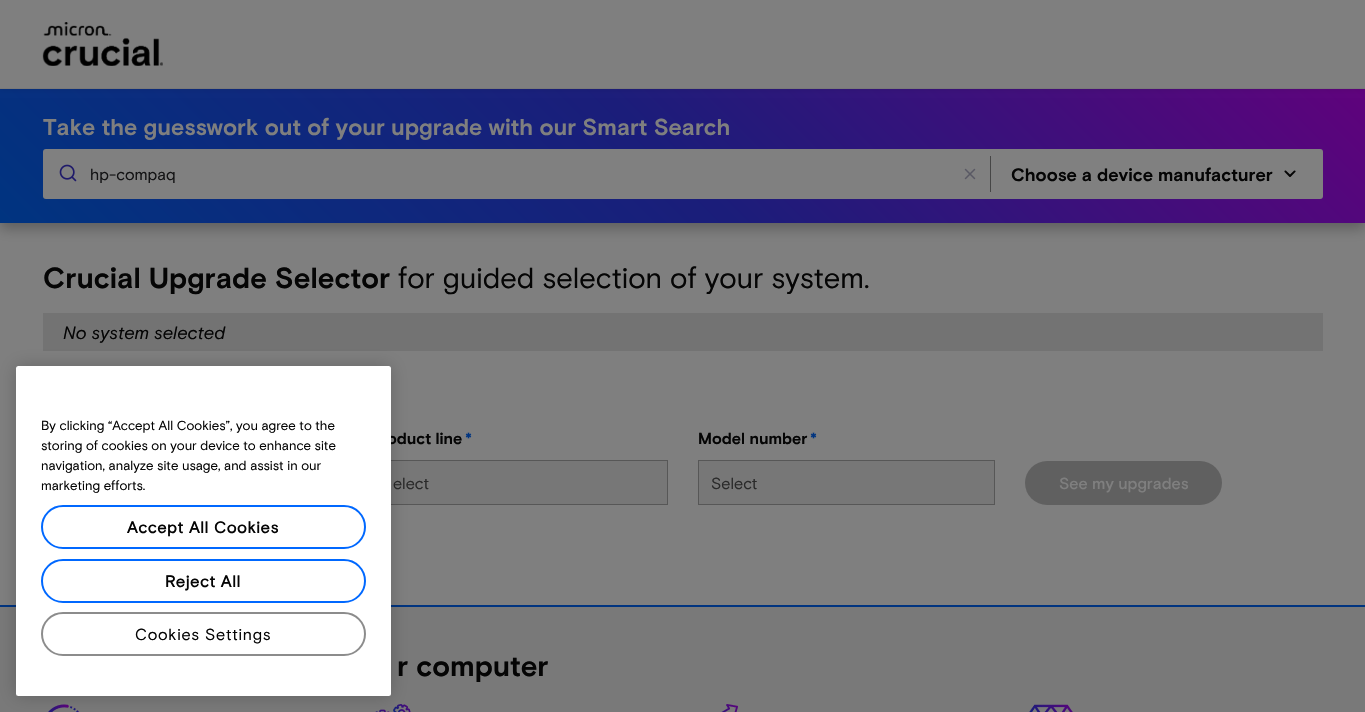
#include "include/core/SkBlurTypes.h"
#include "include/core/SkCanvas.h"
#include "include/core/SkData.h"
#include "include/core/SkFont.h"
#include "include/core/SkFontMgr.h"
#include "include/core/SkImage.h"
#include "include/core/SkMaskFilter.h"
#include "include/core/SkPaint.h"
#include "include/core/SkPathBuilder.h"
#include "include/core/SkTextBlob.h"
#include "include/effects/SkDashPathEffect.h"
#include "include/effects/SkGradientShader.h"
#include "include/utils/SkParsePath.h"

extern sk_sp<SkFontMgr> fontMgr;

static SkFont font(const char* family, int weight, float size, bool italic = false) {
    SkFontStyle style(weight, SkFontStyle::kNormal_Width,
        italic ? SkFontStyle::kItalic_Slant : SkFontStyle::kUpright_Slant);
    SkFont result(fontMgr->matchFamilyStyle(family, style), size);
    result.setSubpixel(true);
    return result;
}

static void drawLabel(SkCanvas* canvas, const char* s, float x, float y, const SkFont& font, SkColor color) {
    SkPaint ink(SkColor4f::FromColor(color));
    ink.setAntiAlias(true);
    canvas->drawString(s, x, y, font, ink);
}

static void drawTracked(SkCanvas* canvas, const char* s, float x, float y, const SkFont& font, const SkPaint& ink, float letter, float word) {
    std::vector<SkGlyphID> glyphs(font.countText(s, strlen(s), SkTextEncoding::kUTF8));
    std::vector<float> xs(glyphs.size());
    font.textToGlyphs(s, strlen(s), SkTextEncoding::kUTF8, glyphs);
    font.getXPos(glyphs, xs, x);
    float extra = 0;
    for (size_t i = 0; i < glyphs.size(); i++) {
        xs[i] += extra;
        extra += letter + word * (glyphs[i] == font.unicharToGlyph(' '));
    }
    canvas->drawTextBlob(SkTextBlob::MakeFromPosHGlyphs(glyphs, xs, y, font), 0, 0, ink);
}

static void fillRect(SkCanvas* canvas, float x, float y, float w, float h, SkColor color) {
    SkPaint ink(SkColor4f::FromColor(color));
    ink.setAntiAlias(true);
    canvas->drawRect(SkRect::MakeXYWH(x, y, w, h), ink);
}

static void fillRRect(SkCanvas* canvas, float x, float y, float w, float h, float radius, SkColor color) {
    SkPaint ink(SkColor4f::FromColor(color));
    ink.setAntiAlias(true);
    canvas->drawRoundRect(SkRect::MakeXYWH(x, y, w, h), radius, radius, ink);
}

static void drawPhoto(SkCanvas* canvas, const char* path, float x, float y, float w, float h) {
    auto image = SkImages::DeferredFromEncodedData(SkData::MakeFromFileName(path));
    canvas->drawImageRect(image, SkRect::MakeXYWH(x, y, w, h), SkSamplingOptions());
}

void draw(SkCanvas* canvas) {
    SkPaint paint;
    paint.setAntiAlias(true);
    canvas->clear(0xFF7F7F7F);
    paint.setColor(0x40000000);
    paint.setMaskFilter(SkMaskFilter::MakeBlur(kNormal_SkBlurStyle, 6));
    canvas->drawRect(SkRect::MakeXYWH(0, 94, 1365, 135), paint);
    paint.setMaskFilter(nullptr);
    {
        const SkColor colors[] = {0xFF5F027C, 0xFF1B1D7A, 0xFF003480};
        const float stops[] = {0, 0.51f, 1};
        const SkPoint ends[] = {{1058, -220}, {308, 531}};
        paint.setShader(SkGradientShader::MakeLinear(ends, colors, stops, 3, SkTileMode::kClamp));
        paint.setAlpha(255);
    }
    canvas->drawRect(SkRect::MakeXYWH(0, 89, 1365, 134), paint);
    paint.setShader(nullptr);
    paint.setColor(0x1A050505);
    paint.setMaskFilter(SkMaskFilter::MakeBlur(kNormal_SkBlurStyle, 3));
    canvas->drawRect(SkRect::MakeXYWH(0, 0, 1365, 89), paint);
    paint.setMaskFilter(nullptr);
    fillRect(canvas, 0, 0, 1365, 88, 0xFF7F7F7F);
    fillRect(canvas, 0, 88, 1365, 1, 0xFF797979);
    drawPhoto(canvas, "assets/img1.png", 42, 22, 121, 44);
    SkFont font1 = font("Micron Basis", 700, 23);
    drawLabel(canvas, "Take the guesswork out of your upgrade with our Smart Search", 43, 135, font1, 0xFF7F7F7F);
    fillRRect(canvas, 43, 149, 1280, 50, 3, 0xFF808080);
    drawPhoto(canvas, "assets/img2.png", 59, 164, 18, 18);
    canvas->save();
    canvas->clipRect(SkRect::MakeXYWH(90, 164, 1229, 19));
    SkFont font2 = font("Micron Basis", 400, 16);
    drawLabel(canvas, "hp-compaq", 90, 180, font2, 0xFF131314);
    canvas->restore();
    drawPhoto(canvas, "assets/img3.png", 964, 168, 12, 12);
    fillRect(canvas, 990, 156, 1, 36, 0xFF464646);
    SkFont font3 = font("Micron Basis", 700, 18);
    drawLabel(canvas, "Choose a device manufacturer", 1011, 181, font3, 0xFF050505);
    drawPhoto(canvas, "assets/img4.png", 1284, 170, 12, 7);
    fillRect(canvas, 0, 605, 1365, 2, 0xFF003480);
    SkFont font4 = font("Micron Basis", 700, 29);
    drawLabel(canvas, "Crucial Upgrade Selector", 43, 288, font4, 0xFF050505);
    SkFont font5 = font("Micron Basis", 400, 29);
    drawLabel(canvas, "for guided selection of your system.", 398, 288, font5, 0xFF050505);
    fillRect(canvas, 43, 313, 1280, 38, 0xFF737373);
    SkFont font6 = font("Micron Basis", 400, 18, true);
    drawLabel(canvas, "No system selected", 63, 339, font6, 0xFF050505);
    SkFont font7 = font("Micron Basis", 700, 16);
    drawLabel(canvas, "oduct line", 387, 444, font7, 0xFF050505);
    drawLabel(canvas, "*", 465, 444, font7, 0xFF003480);
    fillRect(canvas, 391, 461, 276, 43, 0xFF777777);
    paint.setStroke(true);
    paint.setStrokeWidth(1);
    paint.setColor(0xFF575757);
    canvas->drawRect(SkRect::MakeXYWH(370.5f, 460.5f, 297, 44), paint);
    drawLabel(canvas, "elect", 393, 489, font2, 0xFF2A2A2A);
    drawLabel(canvas, "Model number", 698, 444, font7, 0xFF050505);
    drawLabel(canvas, "*", 810, 444, font7, 0xFF003480);
    paint.setStroke(false);
    paint.setColor(0xFF777777);
    canvas->drawRect(SkRect::MakeXYWH(698.5f, 460.5f, 296, 44), paint);
    paint.setStroke(true);
    paint.setColor(0xFF575757);
    canvas->drawRect(SkRect::MakeXYWH(698.5f, 460.5f, 296, 44), paint);
    drawLabel(canvas, "Select", 711, 489, font2, 0xFF2A2A2A);
    fillRRect(canvas, 1025, 461, 197, 44, 22, 0xFF606060);
    SkFont font8 = font("Micron Basis", 500, 16);
    drawLabel(canvas, "See my upgrades", 1059, 489, font8, 0xFF7F7F7F);
    fillRect(canvas, 0, 607, 1365, 105, 0xFF797979);
    drawLabel(canvas, "r computer", 397, 676, font4, 0xFF050505);
    drawPhoto(canvas, "assets/img5.png", 48, 704, 31, 8);
    drawPhoto(canvas, "assets/img6.png", 375, 704, 36, 8);
    drawPhoto(canvas, "assets/img7.png", 721, 704, 17, 8);
    drawPhoto(canvas, "assets/img8.png", 1029, 704, 44, 8);
    paint.setStroke(false);
    paint.setColor(0x33000000);
    paint.setMaskFilter(SkMaskFilter::MakeBlur(kNormal_SkBlurStyle, 9));
    canvas->drawRoundRect(SkRect::MakeXYWH(16, 366, 375, 330), 2.5f, 2.5f, paint);
    paint.setMaskFilter(nullptr);
    fillRRect(canvas, 16, 366, 375, 330, 2.5f, 0xFFFFFFFF);
    SkFont font9 = font("Micron Basis", 400, 13.1f);
    drawLabel(canvas, "By clicking “Accept All Cookies”, you agree to the", 41, 430, font9, 0xFF050505);
    drawLabel(canvas, "storing of cookies on your device to enhance site", 41, 450, font9, 0xFF050505);
    drawLabel(canvas, "navigation, analyze site usage, and assist in our", 41, 470, font9, 0xFF050505);
    drawLabel(canvas, "marketing efforts.", 41, 490, font9, 0xFF050505);
    paint.setStroke(true);
    paint.setStrokeWidth(2);
    paint.setColor(0xFF0068FF);
    canvas->drawRoundRect(SkRect::MakeXYWH(42, 506, 323, 42), 21, 21, paint);
    SkFont font10 = font("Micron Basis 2", 700, 16);
    paint.setStroke(false);
    paint.setColor(0xFF050505);
    drawTracked(canvas, "Accept All Cookies", 127, 533, font10, paint, 0.75f, 0);
    paint.setStroke(true);
    paint.setColor(0xFF0068FF);
    canvas->drawRoundRect(SkRect::MakeXYWH(42, 560, 323, 42), 21, 21, paint);
    paint.setStroke(false);
    paint.setColor(0xFF050505);
    drawTracked(canvas, "Reject All", 165, 587, font10, paint, 0.75f, 0);
    paint.setStroke(true);
    paint.setColor(0xFF8C8C8C);
    canvas->drawRoundRect(SkRect::MakeXYWH(42, 613, 323, 42), 21, 21, paint);
    paint.setStroke(false);
    paint.setColor(0xFF050505);
    drawTracked(canvas, "Cookies Settings", 135, 640, font2, paint, 0.75f, 0);
}
